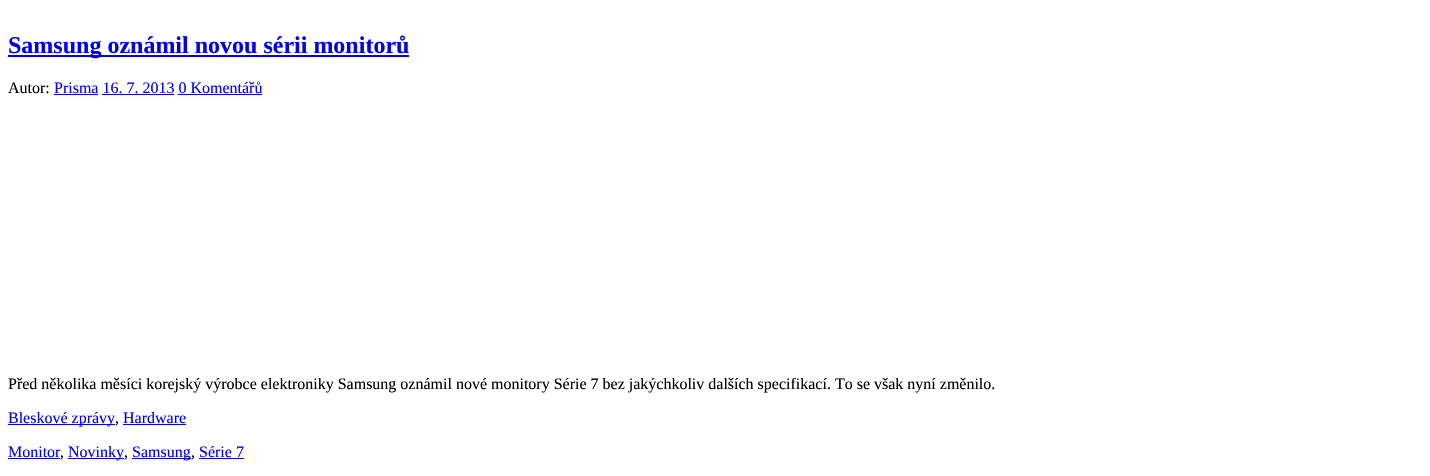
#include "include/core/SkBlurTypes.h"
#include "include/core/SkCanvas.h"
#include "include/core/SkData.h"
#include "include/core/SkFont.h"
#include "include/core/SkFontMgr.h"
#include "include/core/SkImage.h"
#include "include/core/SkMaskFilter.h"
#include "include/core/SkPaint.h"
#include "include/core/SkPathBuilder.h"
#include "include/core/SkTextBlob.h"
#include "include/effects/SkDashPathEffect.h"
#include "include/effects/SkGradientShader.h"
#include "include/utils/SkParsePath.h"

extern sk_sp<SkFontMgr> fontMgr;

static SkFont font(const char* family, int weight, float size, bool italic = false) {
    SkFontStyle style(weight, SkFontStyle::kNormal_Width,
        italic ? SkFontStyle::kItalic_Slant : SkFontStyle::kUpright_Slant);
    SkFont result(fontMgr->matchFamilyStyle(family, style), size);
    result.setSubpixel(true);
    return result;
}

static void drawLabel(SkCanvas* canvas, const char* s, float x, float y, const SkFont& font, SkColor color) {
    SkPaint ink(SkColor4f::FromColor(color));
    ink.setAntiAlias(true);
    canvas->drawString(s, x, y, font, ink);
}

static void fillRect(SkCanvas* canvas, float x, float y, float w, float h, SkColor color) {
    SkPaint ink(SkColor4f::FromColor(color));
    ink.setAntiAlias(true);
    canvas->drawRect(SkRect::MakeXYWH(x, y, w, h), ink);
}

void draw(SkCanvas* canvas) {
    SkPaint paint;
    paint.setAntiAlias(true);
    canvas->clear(0xFFFFFFFF);
    fillRect(canvas, 8, 55, 401, 2, 0xFF0000EE);
    SkFont font1 = font("Liberation Serif", 700, 24);
    drawLabel(canvas, "Samsung oznámil novou sérii monitorů", 8, 53, font1, 0xFF0000EE);
    SkFont font2 = font("Liberation Serif", 400, 16);
    drawLabel(canvas, "Autor:", 8, 93, font2, 0xFF000000);
    drawLabel(canvas, "Prisma 16. 7. 2013 0 Komentářů", 54, 93, font2, 0xFF0000EE);
    fillRect(canvas, 54, 94, 44, 1, 0xFF0000EE);
    fillRect(canvas, 102, 94, 72, 1, 0xFF0000EE);
    fillRect(canvas, 178, 94, 84, 1, 0xFF0000EE);
    drawLabel(canvas, "Před několika měsíci korejský výrobce elektroniky Samsung oznámil nové monitory Série 7 bez jakýchkoliv dalších specifikací. To se však nyní změnilo.", 8, 389, font2, 0xFF000000);
    fillRect(canvas, 8, 424, 107, 1, 0xFF0000EE);
    drawLabel(canvas, "Bleskové zprávy", 8, 423, font2, 0xFF0000EE);
    drawLabel(canvas, ",", 115, 423, font2, 0xFF000000);
    fillRect(canvas, 123, 424, 63, 1, 0xFF0000EE);
    drawLabel(canvas, "Hardware", 123, 423, font2, 0xFF0000EE);
    drawLabel(canvas, "Monitor", 8, 457, font2, 0xFF0000EE);
    drawLabel(canvas, ",", 60, 457, font2, 0xFF000000);
    fillRect(canvas, 8, 458, 52, 1, 0xFF0000EE);
    fillRect(canvas, 68, 458, 56, 1, 0xFF0000EE);
    drawLabel(canvas, "Novinky", 68, 457, font2, 0xFF0000EE);
    drawLabel(canvas, ",", 124, 457, font2, 0xFF000000);
    fillRect(canvas, 132, 458, 59, 1, 0xFF0000EE);
    drawLabel(canvas, "Samsung", 132, 457, font2, 0xFF0000EE);
    drawLabel(canvas, ",", 191, 457, font2, 0xFF000000);
    fillRect(canvas, 199, 458, 45, 1, 0xFF0000EE);
    drawLabel(canvas, "Série 7", 199, 457, font2, 0xFF0000EE);
}
